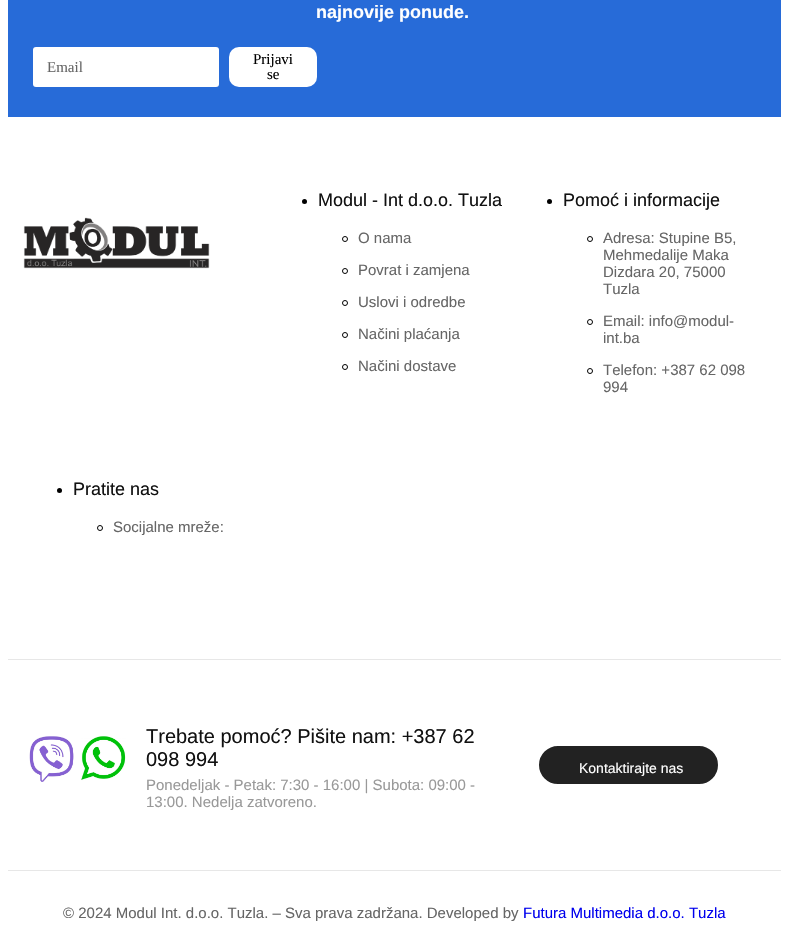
#include "include/core/SkBlurTypes.h"
#include "include/core/SkCanvas.h"
#include "include/core/SkData.h"
#include "include/core/SkFont.h"
#include "include/core/SkFontMgr.h"
#include "include/core/SkImage.h"
#include "include/core/SkMaskFilter.h"
#include "include/core/SkPaint.h"
#include "include/core/SkPathBuilder.h"
#include "include/core/SkTextBlob.h"
#include "include/effects/SkDashPathEffect.h"
#include "include/effects/SkGradientShader.h"
#include "include/utils/SkParsePath.h"

extern sk_sp<SkFontMgr> fontMgr;

static SkFont font(const char* family, int weight, float size, bool italic = false) {
    SkFontStyle style(weight, SkFontStyle::kNormal_Width,
        italic ? SkFontStyle::kItalic_Slant : SkFontStyle::kUpright_Slant);
    SkFont result(fontMgr->matchFamilyStyle(family, style), size);
    result.setSubpixel(true);
    return result;
}

static void drawLabel(SkCanvas* canvas, const char* s, float x, float y, const SkFont& font, SkColor color) {
    SkPaint ink(SkColor4f::FromColor(color));
    ink.setAntiAlias(true);
    canvas->drawString(s, x, y, font, ink);
}

static void fillRect(SkCanvas* canvas, float x, float y, float w, float h, SkColor color) {
    SkPaint ink(SkColor4f::FromColor(color));
    ink.setAntiAlias(true);
    canvas->drawRect(SkRect::MakeXYWH(x, y, w, h), ink);
}

static void fillRRect(SkCanvas* canvas, float x, float y, float w, float h, float radius, SkColor color) {
    SkPaint ink(SkColor4f::FromColor(color));
    ink.setAntiAlias(true);
    canvas->drawRoundRect(SkRect::MakeXYWH(x, y, w, h), radius, radius, ink);
}

static void drawPhoto(SkCanvas* canvas, const char* path, float x, float y, float w, float h) {
    auto image = SkImages::DeferredFromEncodedData(SkData::MakeFromFileName(path));
    canvas->drawImageRect(image, SkRect::MakeXYWH(x, y, w, h), SkSamplingOptions());
}

void draw(SkCanvas* canvas) {
    SkPaint paint;
    paint.setAntiAlias(true);
    canvas->clear(0xFFFFFFFF);
    fillRect(canvas, 8, 0, 773, 117, 0xFF276BD8);
    SkFont font1 = font("Liberation Sans", 700, 18);
    drawLabel(canvas, "najnovije ponude.", 316, 18, font1, 0xFFFFFFFF);
    fillRRect(canvas, 33, 47, 186, 40, 3, 0xFFFFFFFF);
    SkFont font2 = font("Liberation Serif", 400, 15);
    drawLabel(canvas, "Email", 47, 72, font2, 0xFF666666);
    fillRRect(canvas, 229, 47, 88, 40, 10, 0xFFFFFFFF);
    drawLabel(canvas, "Prijavi", 253, 64, font2, 0xFF000000);
    drawLabel(canvas, "se", 267, 79, font2, 0xFF000000);
    drawPhoto(canvas, "assets/img1.png", 23, 217, 187, 52);
    paint.setColor(0xFF000000);
    canvas->drawCircle(304.5f, 201.5f, 2.5f, paint);
    SkFont font3 = font("Liberation Sans", 400, 18);
    drawLabel(canvas, "Modul - Int d.o.o. Tuzla", 318, 206, font3, 0xFF111111);
    paint.setStroke(true);
    paint.setStrokeWidth(1);
    canvas->drawCircle(345, 239, 2.5f, paint);
    SkFont font4 = font("Liberation Sans", 400, 15);
    drawLabel(canvas, "O nama", 358, 243, font4, 0xFF666666);
    canvas->drawCircle(345, 271, 2.5f, paint);
    drawLabel(canvas, "Povrat i zamjena", 358, 275, font4, 0xFF666666);
    canvas->drawCircle(345, 303, 2.5f, paint);
    drawLabel(canvas, "Uslovi i odredbe", 358, 307, font4, 0xFF666666);
    canvas->drawCircle(345, 335, 2.5f, paint);
    drawLabel(canvas, "Načini plaćanja", 358, 339, font4, 0xFF666666);
    canvas->drawCircle(345, 367, 2.5f, paint);
    drawLabel(canvas, "Načini dostave", 358, 371, font4, 0xFF666666);
    paint.setStroke(false);
    canvas->drawCircle(549.5f, 201.5f, 2.5f, paint);
    drawLabel(canvas, "Pomoć i informacije", 563, 206, font3, 0xFF111111);
    paint.setStroke(true);
    canvas->drawCircle(590, 239, 2.5f, paint);
    drawLabel(canvas, "Adresa: Stupine B5,", 603, 243, font4, 0xFF666666);
    drawLabel(canvas, "Mehmedalije Maka", 603, 260, font4, 0xFF666666);
    drawLabel(canvas, "Dizdara 20, 75000", 603, 277, font4, 0xFF666666);
    drawLabel(canvas, "Tuzla", 603, 294, font4, 0xFF666666);
    canvas->drawCircle(590, 322, 2.5f, paint);
    drawLabel(canvas, "Email: info@modul-", 603, 326, font4, 0xFF666666);
    drawLabel(canvas, "int.ba", 603, 343, font4, 0xFF666666);
    canvas->drawCircle(590, 371, 2.5f, paint);
    drawLabel(canvas, "Telefon: +387 62 098", 603, 375, font4, 0xFF666666);
    drawLabel(canvas, "994", 603, 392, font4, 0xFF666666);
    paint.setStroke(false);
    canvas->drawCircle(59.5f, 490.5f, 2.5f, paint);
    drawLabel(canvas, "Pratite nas", 73, 495, font3, 0xFF111111);
    paint.setStroke(true);
    canvas->drawCircle(100, 528, 2.5f, paint);
    drawLabel(canvas, "Socijalne mreže:", 113, 532, font4, 0xFF666666);
    fillRect(canvas, 8, 659, 773, 1, 0xFFE7E7E7);
    fillRect(canvas, 8, 870, 773, 1, 0xFFE7E7E7);
    drawPhoto(canvas, "assets/img2.png", 29, 736, 97, 46);
    SkFont font5 = font("Liberation Sans", 400, 20);
    drawLabel(canvas, "Trebate pomoć? Pišite nam: +387 62", 146, 743, font5, 0xFF111111);
    drawLabel(canvas, "098 994", 146, 766, font5, 0xFF111111);
    drawLabel(canvas, "Ponedeljak - Petak: 7:30 - 16:00 | Subota: 09:00 -", 146, 790, font4, 0xFF999999);
    drawLabel(canvas, "13:00. Nedelja zatvoreno.", 146, 807, font4, 0xFF999999);
    paint.setStroke(false);
    paint.setColor(0xFF222222);
    canvas->drawRoundRect(SkRect::MakeXYWH(540, 747, 177, 36), 18, 18, paint);
    paint.setStroke(true);
    paint.setStrokeWidth(2);
    canvas->drawRoundRect(SkRect::MakeXYWH(540, 747, 177, 36), 18, 18, paint);
    SkFont font6 = font("Liberation Sans", 400, 14);
    drawLabel(canvas, "Kontaktirajte nas", 579, 773, font6, 0xFFFFFFFF);
    drawLabel(canvas, "© 2024 Modul Int. d.o.o. Tuzla. – Sva prava zadržana. Developed by", 63, 918, font4, 0xFF666666);
    drawLabel(canvas, "Futura Multimedia d.o.o. Tuzla", 523, 918, font4, 0xFF0000EE);
}
